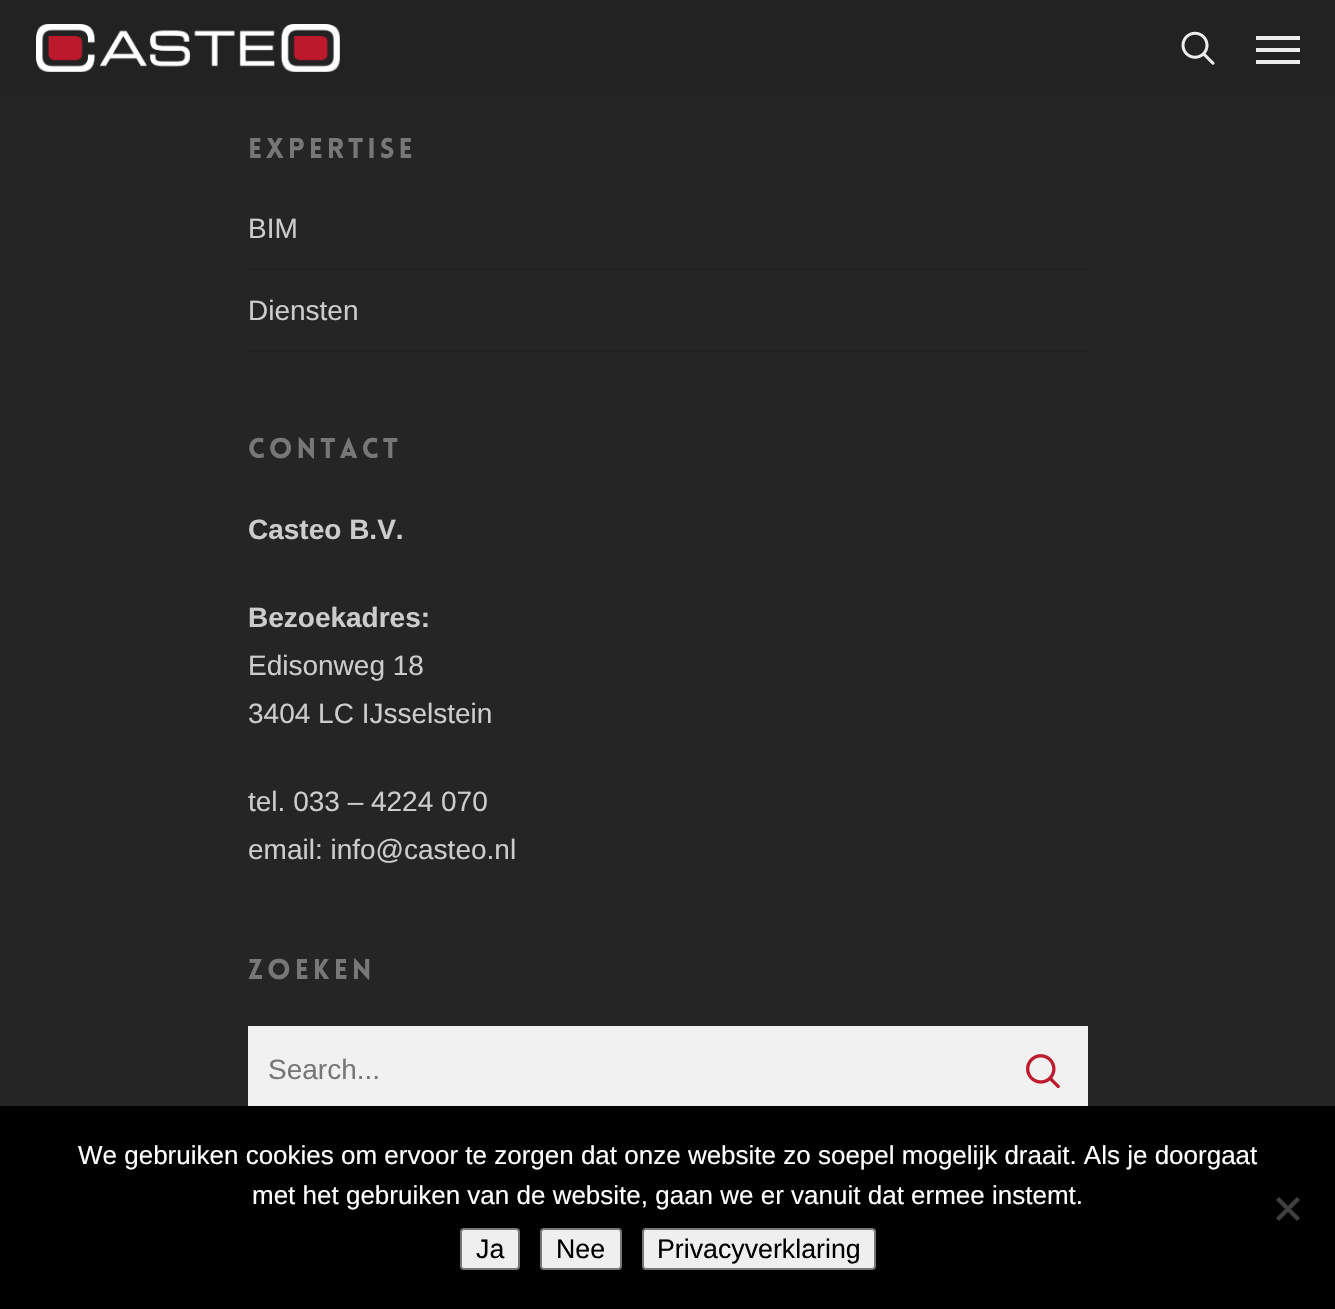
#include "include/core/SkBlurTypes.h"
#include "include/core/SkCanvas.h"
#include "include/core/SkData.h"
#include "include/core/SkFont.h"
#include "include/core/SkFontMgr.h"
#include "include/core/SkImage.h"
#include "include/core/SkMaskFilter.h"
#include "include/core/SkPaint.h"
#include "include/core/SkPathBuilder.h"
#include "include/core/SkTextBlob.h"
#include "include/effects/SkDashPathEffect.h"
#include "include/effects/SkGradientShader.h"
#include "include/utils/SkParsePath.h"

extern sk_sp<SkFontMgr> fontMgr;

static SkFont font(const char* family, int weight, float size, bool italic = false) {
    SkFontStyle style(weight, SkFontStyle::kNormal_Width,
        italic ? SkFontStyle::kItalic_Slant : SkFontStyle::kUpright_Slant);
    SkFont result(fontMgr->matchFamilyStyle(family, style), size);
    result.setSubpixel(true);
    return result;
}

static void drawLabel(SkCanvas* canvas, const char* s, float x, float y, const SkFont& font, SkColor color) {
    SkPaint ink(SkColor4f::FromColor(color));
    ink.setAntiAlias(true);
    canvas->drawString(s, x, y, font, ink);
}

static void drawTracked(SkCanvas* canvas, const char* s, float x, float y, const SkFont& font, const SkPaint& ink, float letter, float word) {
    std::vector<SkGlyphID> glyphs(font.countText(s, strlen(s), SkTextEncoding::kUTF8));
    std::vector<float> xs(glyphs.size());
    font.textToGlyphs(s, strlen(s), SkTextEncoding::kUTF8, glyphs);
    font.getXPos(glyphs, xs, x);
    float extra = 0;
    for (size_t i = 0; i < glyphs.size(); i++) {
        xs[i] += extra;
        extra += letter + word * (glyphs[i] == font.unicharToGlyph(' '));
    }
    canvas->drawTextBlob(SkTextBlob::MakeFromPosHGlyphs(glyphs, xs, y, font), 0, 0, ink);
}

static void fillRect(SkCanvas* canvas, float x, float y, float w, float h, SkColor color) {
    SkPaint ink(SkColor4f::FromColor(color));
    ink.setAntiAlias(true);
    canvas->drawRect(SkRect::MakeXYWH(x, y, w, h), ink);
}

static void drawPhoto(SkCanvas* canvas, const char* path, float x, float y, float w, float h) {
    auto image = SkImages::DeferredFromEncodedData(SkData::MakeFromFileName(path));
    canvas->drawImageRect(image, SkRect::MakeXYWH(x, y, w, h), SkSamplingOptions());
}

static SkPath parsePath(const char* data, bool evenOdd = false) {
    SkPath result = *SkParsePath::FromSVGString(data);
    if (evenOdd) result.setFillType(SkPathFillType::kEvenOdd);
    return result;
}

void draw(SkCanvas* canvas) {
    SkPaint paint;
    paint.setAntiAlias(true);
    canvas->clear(0xFF252525);
    fillRect(canvas, 0, 0, 1335, 96, 0xFF222222);
    drawPhoto(canvas, "assets/img1.png", 36, 24, 304, 48);
    drawPhoto(canvas, "assets/img2.png", 1181, 31, 34, 34);
    fillRect(canvas, 1256, 36, 44, 4, 0xFFEDEDED);
    fillRect(canvas, 1256, 60, 44, 4, 0xFFEDEDED);
    fillRect(canvas, 1256, 48, 44, 4, 0xFFEDEDED);
    SkFont font1 = font("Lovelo", 900, 28);
    paint.setColor(0xFF777777);
    drawTracked(canvas, "Expertise", 248, 158, font1, paint, 4, 0);
    fillRect(canvas, 248, 268, 840, 2, 0xFF212121);
    SkFont font2 = font("Liberation Sans", 400, 28);
    drawLabel(canvas, "BIM", 248, 238, font2, 0xFFCCCCCC);
    fillRect(canvas, 248, 350, 840, 2, 0xFF212121);
    drawLabel(canvas, "Diensten", 248, 320, font2, 0xFFCCCCCC);
    drawTracked(canvas, "CONTACT", 248, 458, font1, paint, 4, 0);
    SkFont font3 = font("Liberation Sans", 700, 28);
    drawLabel(canvas, "Casteo B.V.", 248, 539, font3, 0xFFCCCCCC);
    drawLabel(canvas, "Bezoekadres:", 248, 627, font3, 0xFFCCCCCC);
    drawLabel(canvas, "Edisonweg 18", 248, 675, font2, 0xFFCCCCCC);
    drawLabel(canvas, "3404 LC IJsselstein", 248, 723, font2, 0xFFCCCCCC);
    drawLabel(canvas, "tel. 033 – 4224 070", 248, 811, font2, 0xFFCCCCCC);
    drawLabel(canvas, "email: info@casteo.nl", 248, 859, font2, 0xFFCCCCCC);
    drawTracked(canvas, "ZOEKEN", 248, 979, font1, paint, 4, 0);
    fillRect(canvas, 248, 1026, 840, 80, 0xFFF1F1F1);
    drawLabel(canvas, "Search...", 268, 1079, font2, 0xFF777777);
    drawPhoto(canvas, "assets/img3.png", 1026, 1054, 34, 35);
    fillRect(canvas, 0, 1106, 1335, 203, 0xFF000000);
    SkFont font4 = font("Liberation Sans", 400, 26);
    drawLabel(canvas, "We gebruiken cookies om ervoor te zorgen dat onze website zo soepel mogelijk draait. Als je doorgaat", 78, 1164, font4, 0xFFFFFFFF);
    drawLabel(canvas, "met het gebruiken van de website, gaan we er vanuit dat ermee instemt.", 252, 1204, font4, 0xFFFFFFFF);
    paint.setColor(0xFF404040);
    canvas->drawPath(parsePath("M1297 1197L1300 1200L1279 1221L1276 1218Z"), paint);
    canvas->drawPath(parsePath("M1276 1200L1279 1197L1300 1218L1297 1221Z"), paint);
    paint.setColor(0xFFEFEFEF);
    canvas->drawRoundRect(SkRect::MakeXYWH(461, 1229, 58, 40), 3, 3, paint);
    paint.setStroke(true);
    paint.setStrokeWidth(2);
    paint.setColor(0xFF767676);
    canvas->drawRoundRect(SkRect::MakeXYWH(461, 1229, 58, 40), 3, 3, paint);
    SkFont font5 = font("Liberation Sans", 400, 26.75f);
    drawLabel(canvas, "Ja", 476, 1258, font5, 0xFF000000);
    paint.setStroke(false);
    paint.setColor(0xFFEFEFEF);
    canvas->drawRoundRect(SkRect::MakeXYWH(541, 1229, 80, 40), 3, 3, paint);
    paint.setStroke(true);
    paint.setColor(0xFF767676);
    canvas->drawRoundRect(SkRect::MakeXYWH(541, 1229, 80, 40), 3, 3, paint);
    drawLabel(canvas, "Nee", 556, 1258, font5, 0xFF000000);
    paint.setStroke(false);
    paint.setColor(0xFFEFEFEF);
    canvas->drawRoundRect(SkRect::MakeXYWH(643, 1229, 232, 40), 3, 3, paint);
    paint.setStroke(true);
    paint.setColor(0xFF767676);
    canvas->drawRoundRect(SkRect::MakeXYWH(643, 1229, 232, 40), 3, 3, paint);
    drawLabel(canvas, "Privacyverklaring", 657, 1258, font5, 0xFF000000);
}
